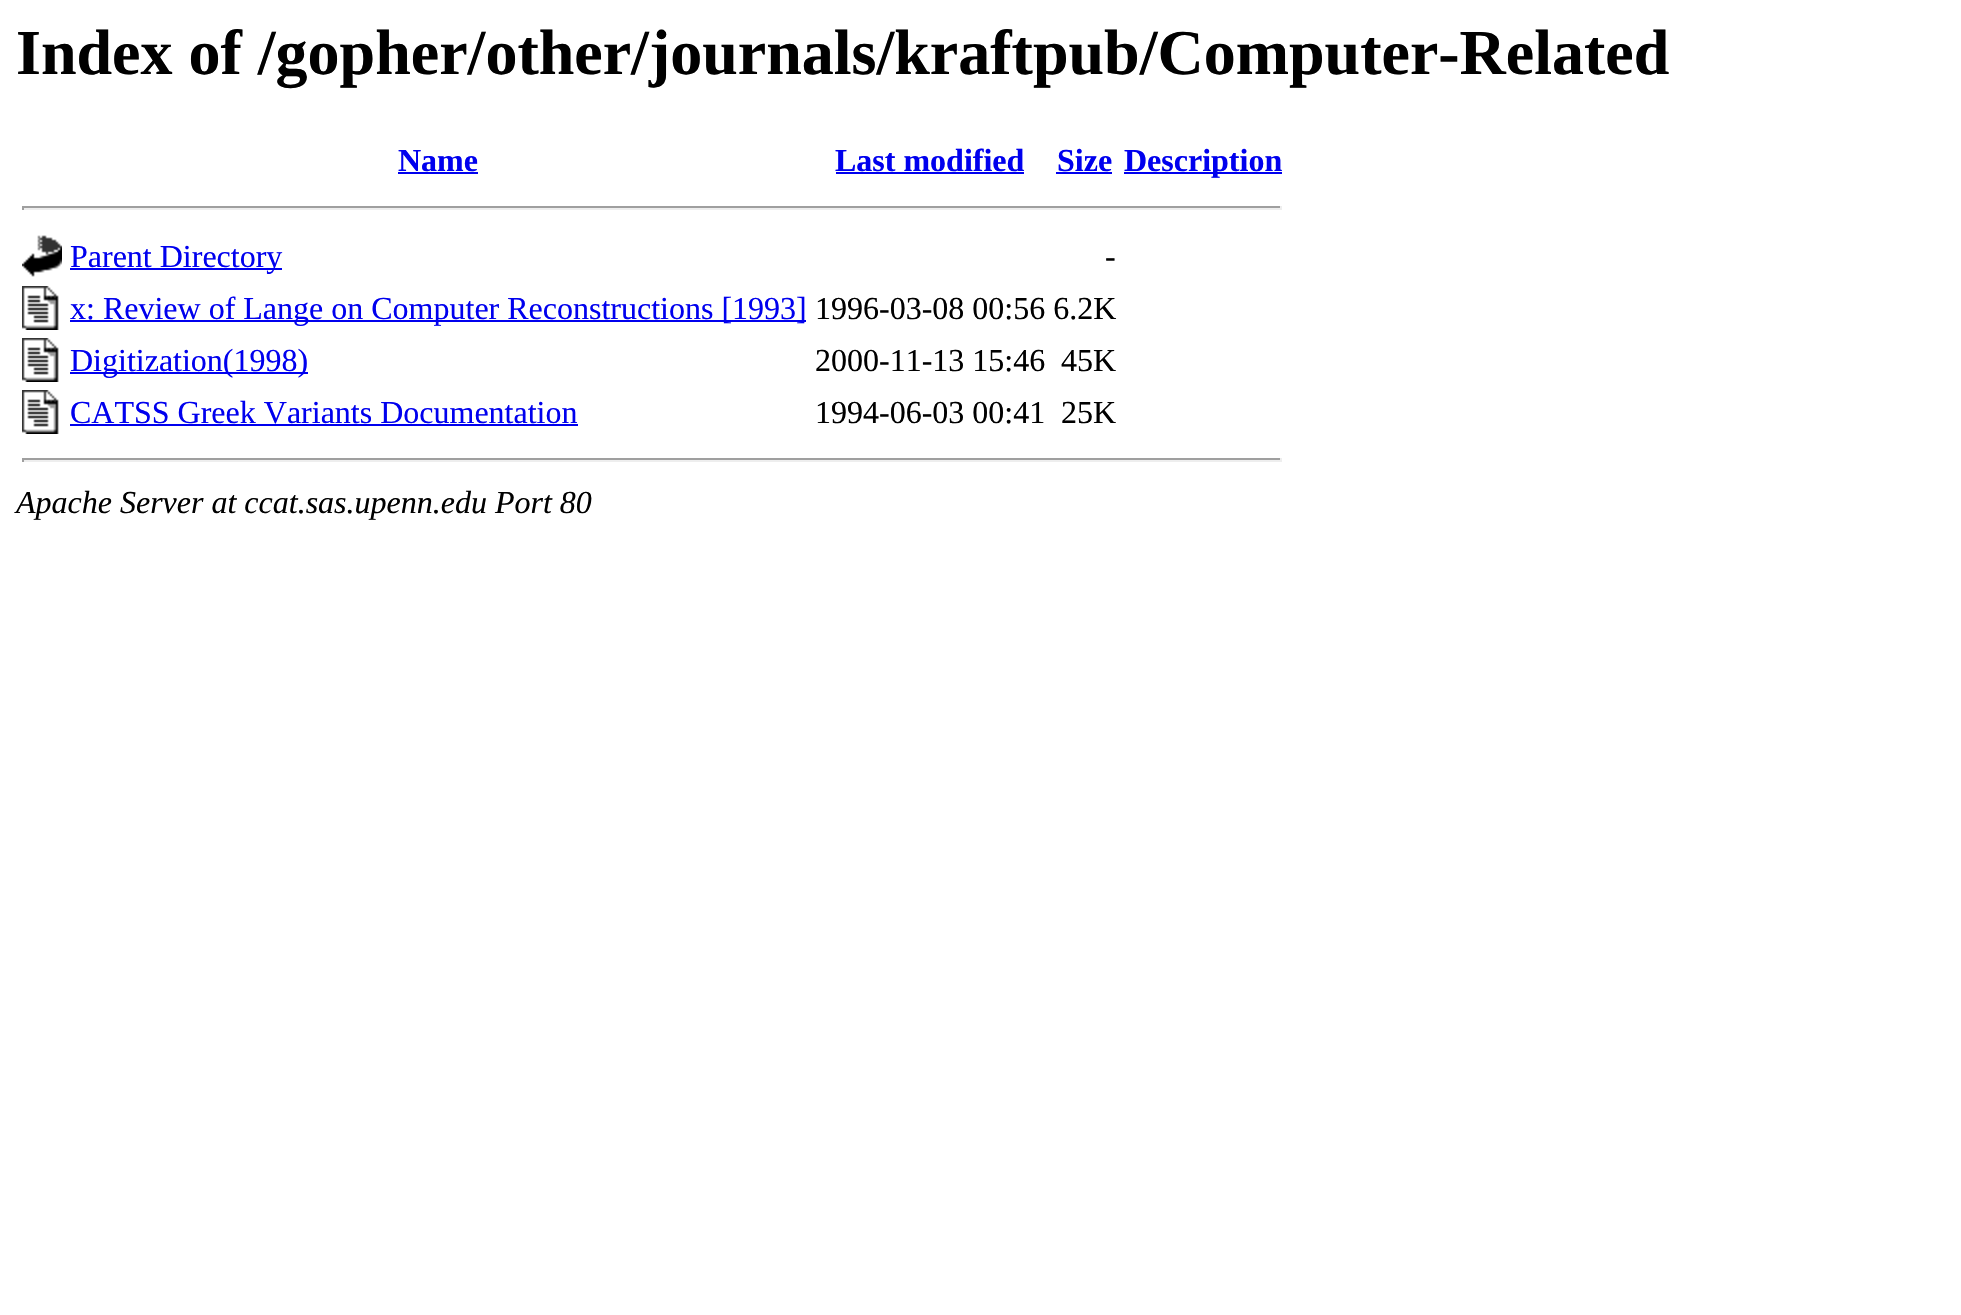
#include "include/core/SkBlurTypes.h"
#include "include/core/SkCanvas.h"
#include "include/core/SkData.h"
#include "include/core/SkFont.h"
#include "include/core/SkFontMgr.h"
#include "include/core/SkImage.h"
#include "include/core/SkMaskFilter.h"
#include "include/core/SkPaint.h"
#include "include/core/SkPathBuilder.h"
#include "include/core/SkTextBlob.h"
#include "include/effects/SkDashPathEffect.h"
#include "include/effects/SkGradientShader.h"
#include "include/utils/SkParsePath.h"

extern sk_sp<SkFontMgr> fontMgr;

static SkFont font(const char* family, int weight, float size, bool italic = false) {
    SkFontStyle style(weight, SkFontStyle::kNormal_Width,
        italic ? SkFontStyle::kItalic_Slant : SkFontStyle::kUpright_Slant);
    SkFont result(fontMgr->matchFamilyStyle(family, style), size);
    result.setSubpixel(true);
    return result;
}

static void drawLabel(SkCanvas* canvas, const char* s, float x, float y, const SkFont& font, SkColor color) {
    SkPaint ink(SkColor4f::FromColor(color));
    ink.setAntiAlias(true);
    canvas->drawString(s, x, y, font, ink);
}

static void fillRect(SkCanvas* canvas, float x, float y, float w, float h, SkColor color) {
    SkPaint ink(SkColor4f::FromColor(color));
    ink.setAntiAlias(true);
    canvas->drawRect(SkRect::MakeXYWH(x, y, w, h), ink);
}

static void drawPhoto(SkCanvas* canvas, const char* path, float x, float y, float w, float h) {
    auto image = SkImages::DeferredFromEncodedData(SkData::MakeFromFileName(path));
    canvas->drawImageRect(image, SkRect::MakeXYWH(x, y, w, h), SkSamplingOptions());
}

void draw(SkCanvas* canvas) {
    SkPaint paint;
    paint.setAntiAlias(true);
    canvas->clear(0xFFFFFFFF);
    SkFont font1 = font("Liberation Serif", 700, 64);
    drawLabel(canvas, "Index of /gopher/other/journals/kraftpub/Computer-Related", 16, 74, font1, 0xFF000000);
    SkFont font2 = font("Liberation Serif", 700, 32);
    drawLabel(canvas, "Name", 398, 171, font2, 0xFF0000EE);
    fillRect(canvas, 398, 172, 80, 2, 0xFF0000EE);
    drawLabel(canvas, "Last modified", 835, 171, font2, 0xFF0000EE);
    fillRect(canvas, 836, 172, 188, 2, 0xFF0000EE);
    drawLabel(canvas, "Size", 1057, 171, font2, 0xFF0000EE);
    fillRect(canvas, 1056, 172, 56, 2, 0xFF0000EE);
    fillRect(canvas, 1124, 172, 158, 2, 0xFF0000EE);
    drawLabel(canvas, "Description", 1124, 171, font2, 0xFF0000EE);
    fillRect(canvas, 22, 206, 1260, 2, 0xFF9F9F9F);
    fillRect(canvas, 1280, 206, 2, 4, 0xFFEEEEEE);
    fillRect(canvas, 22, 208, 1260, 2, 0xFFEEEEEE);
    fillRect(canvas, 22, 206, 2, 4, 0xFF9F9F9F);
    drawPhoto(canvas, "assets/img1.png", 22, 235, 40, 42);
    fillRect(canvas, 70, 268, 212, 2, 0xFF0000EE);
    SkFont font3 = font("Liberation Serif", 400, 32);
    drawLabel(canvas, "Parent Directory", 70, 267, font3, 0xFF0000EE);
    drawLabel(canvas, "-", 1105, 267, font3, 0xFF000000);
    drawPhoto(canvas, "assets/img2.png", 22, 286, 37, 44);
    fillRect(canvas, 70, 320, 736, 2, 0xFF0000EE);
    drawLabel(canvas, "x: Review of Lange on Computer Reconstructions [1993]", 70, 319, font3, 0xFF0000EE);
    drawLabel(canvas, "1996-03-08 00:56 6.2K", 815, 319, font3, 0xFF000000);
    drawPhoto(canvas, "assets/img2.png", 22, 338, 37, 44);
    fillRect(canvas, 70, 372, 238, 2, 0xFF0000EE);
    drawLabel(canvas, "Digitization(1998)", 70, 371, font3, 0xFF0000EE);
    drawLabel(canvas, "2000-11-13 15:46", 815, 371, font3, 0xFF000000);
    drawLabel(canvas, "45K", 1061, 371, font3, 0xFF000000);
    drawPhoto(canvas, "assets/img2.png", 22, 390, 37, 44);
    drawLabel(canvas, "CATSS Greek Variants Documentation", 70, 423, font3, 0xFF0000EE);
    fillRect(canvas, 70, 424, 508, 2, 0xFF0000EE);
    drawLabel(canvas, "1994-06-03 00:41", 815, 423, font3, 0xFF000000);
    drawLabel(canvas, "25K", 1061, 423, font3, 0xFF000000);
    fillRect(canvas, 22, 458, 1260, 2, 0xFF9F9F9F);
    fillRect(canvas, 1280, 458, 2, 4, 0xFFEEEEEE);
    fillRect(canvas, 22, 460, 1260, 2, 0xFFEEEEEE);
    fillRect(canvas, 22, 458, 2, 4, 0xFF9F9F9F);
    SkFont font4 = font("Liberation Serif", 400, 32, true);
    drawLabel(canvas, "Apache Server at ccat.sas.upenn.edu Port 80", 16, 513, font4, 0xFF000000);
}
